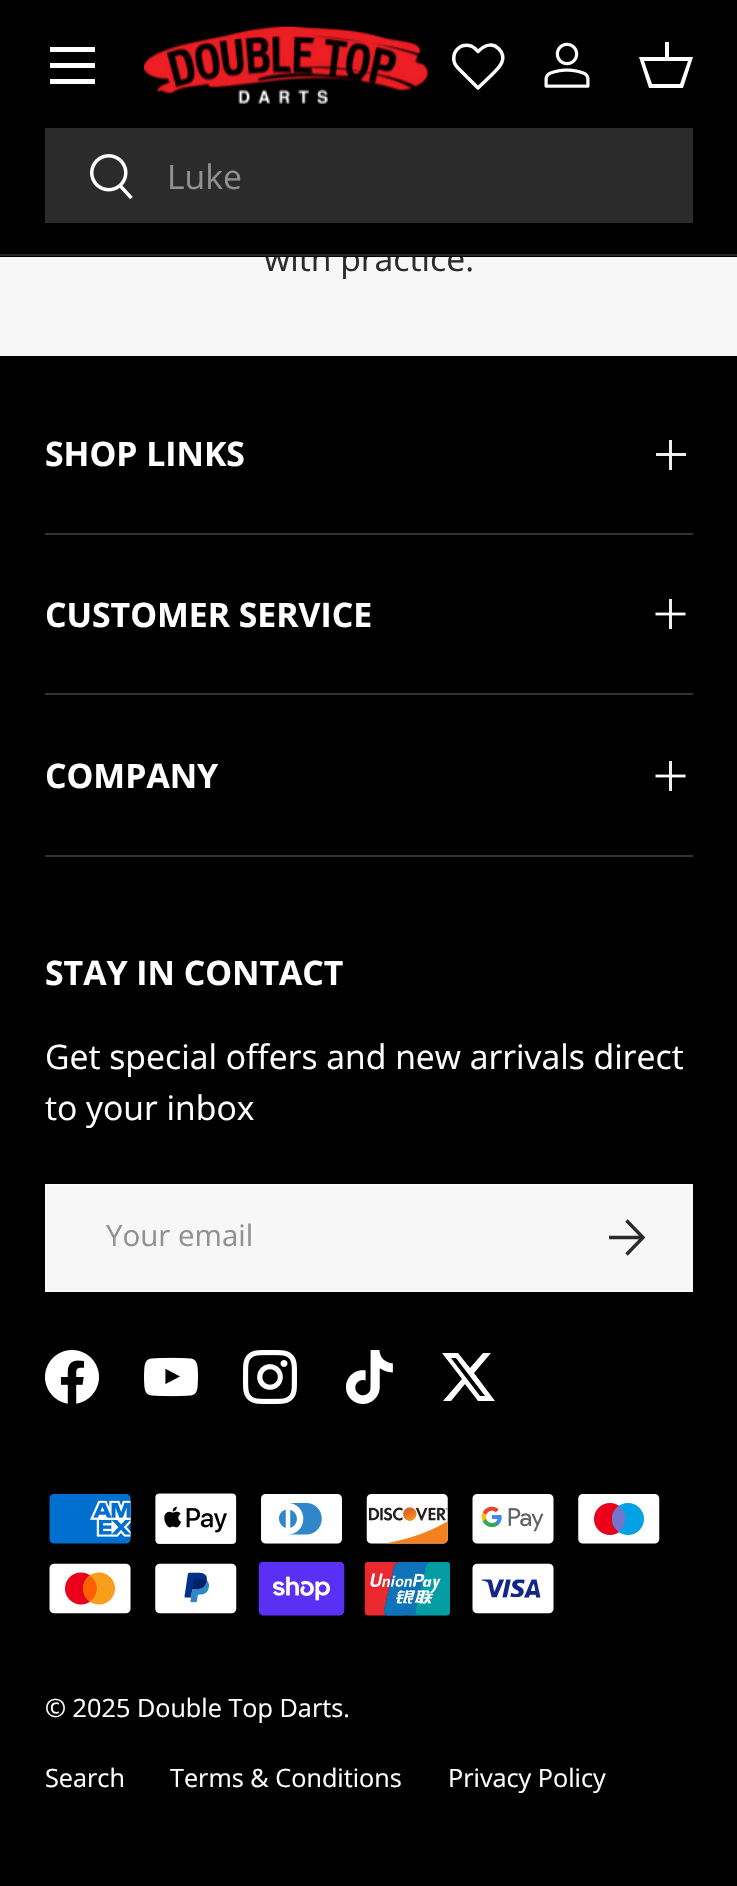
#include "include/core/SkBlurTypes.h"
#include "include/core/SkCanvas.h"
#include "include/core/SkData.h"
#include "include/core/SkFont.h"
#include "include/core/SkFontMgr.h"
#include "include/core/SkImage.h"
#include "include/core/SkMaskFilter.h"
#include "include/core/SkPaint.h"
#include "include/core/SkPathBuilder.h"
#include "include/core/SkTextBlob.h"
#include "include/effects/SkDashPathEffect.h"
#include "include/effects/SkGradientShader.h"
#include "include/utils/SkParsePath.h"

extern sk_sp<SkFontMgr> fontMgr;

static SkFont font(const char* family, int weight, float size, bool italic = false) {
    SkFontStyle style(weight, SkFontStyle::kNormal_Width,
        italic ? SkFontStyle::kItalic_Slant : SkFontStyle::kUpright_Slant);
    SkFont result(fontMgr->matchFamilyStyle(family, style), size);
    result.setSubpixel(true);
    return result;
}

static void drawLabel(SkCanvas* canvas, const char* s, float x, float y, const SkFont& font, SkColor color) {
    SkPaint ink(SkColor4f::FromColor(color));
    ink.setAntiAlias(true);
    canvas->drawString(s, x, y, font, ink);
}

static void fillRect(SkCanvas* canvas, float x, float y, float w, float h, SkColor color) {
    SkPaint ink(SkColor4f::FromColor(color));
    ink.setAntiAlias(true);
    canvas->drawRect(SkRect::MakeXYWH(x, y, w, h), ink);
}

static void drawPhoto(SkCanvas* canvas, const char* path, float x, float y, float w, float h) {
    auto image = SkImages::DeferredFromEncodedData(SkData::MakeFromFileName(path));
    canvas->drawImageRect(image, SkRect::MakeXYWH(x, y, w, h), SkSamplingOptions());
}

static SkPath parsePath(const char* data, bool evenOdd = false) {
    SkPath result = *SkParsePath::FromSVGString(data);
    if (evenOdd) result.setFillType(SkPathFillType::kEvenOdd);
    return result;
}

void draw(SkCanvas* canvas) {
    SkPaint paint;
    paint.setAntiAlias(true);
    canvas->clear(0xFFF7F7F7);
    SkFont font1 = font("Open Sans", 400, 33.75f);
    drawLabel(canvas, "with practice.", 264, 271, font1, 0xFF2A2B2A);
    fillRect(canvas, 0, 0, 737, 257, 0xFF000000);
    fillRect(canvas, 0, 254, 737, 2, 0xFF262626);
    fillRect(canvas, 50, 47, 45, 5, 0xFFFFFFFF);
    fillRect(canvas, 50, 79, 45, 5, 0xFFFFFFFF);
    fillRect(canvas, 50, 63, 45, 5, 0xFFFFFFFF);
    drawPhoto(canvas, "assets/img1.png", 144, 26, 284, 78);
    paint.setStroke(true);
    paint.setStrokeWidth(3.5f);
    paint.setStrokeCap(SkPaint::kRound_Cap);
    paint.setStrokeJoin(SkPaint::kRound_Join);
    paint.setColor(0xFFFFFFFF);
    canvas->drawPath(parsePath("M499 49C492 42 484 45.5 478 51.5L475.5 49C470.5 44 462.5 44 457.5 49C452.5 54 452.5 62.5 457.5 67.5L478 88L490.5 76C497.5 69 509 59.5 499 49Z"), paint);
    drawPhoto(canvas, "assets/img2.png", 544, 42, 46, 46);
    paint.setStroke(false);
    canvas->drawPath(parsePath("M665 57V42H669V57H693L683 88H649L639 57ZM644 61L652 84H680L688 61Z"), paint);
    fillRect(canvas, 45, 128, 648, 95, 0xFF2A2B2A);
    drawPhoto(canvas, "assets/img3.png", 90, 154, 43, 46);
    drawLabel(canvas, "Luke", 167, 189, font1, 0xFF919191);
    fillRect(canvas, 0, 356, 737, 1530, 0xFF000000);
    fillRect(canvas, 669, 440, 3, 30, 0xFFEDEDED);
    fillRect(canvas, 45, 533, 648, 2, 0xFF333333);
    SkFont font2 = font("Open Sans", 700, 33.75f);
    drawLabel(canvas, "SHOP LINKS", 45, 466, font2, 0xFFFFFFFF);
    fillRect(canvas, 656, 453, 30, 3, 0xFFEEEEEE);
    fillRect(canvas, 669, 453, 3, 3, 0xFFFEFEFE);
    fillRect(canvas, 45, 693, 648, 2, 0xFF333333);
    drawLabel(canvas, "CUSTOMER SERVICE", 45, 627, font2, 0xFFFFFFFF);
    paint.setStroke(true);
    paint.setStrokeWidth(2.8f);
    paint.setStrokeCap(SkPaint::kButt_Cap);
    paint.setStrokeJoin(SkPaint::kMiter_Join);
    canvas->drawPath(parsePath("M655.5 614H685.5"), paint);
    fillRect(canvas, 669, 599, 3, 30, 0xEDFFFFFF);
    fillRect(canvas, 45, 855, 648, 2, 0xFF333333);
    drawLabel(canvas, "COMPANY", 45, 788, font2, 0xFFFFFFFF);
    canvas->drawPath(parsePath("M655.5 776H685.5"), paint);
    fillRect(canvas, 669, 761, 3, 30, 0xEDFFFFFF);
    drawLabel(canvas, "STAY IN CONTACT", 45, 985, font2, 0xFFFFFFFF);
    drawLabel(canvas, "Get special offers and new arrivals direct", 45, 1069, font1, 0xFFFFFFFF);
    drawLabel(canvas, "to your inbox", 45, 1120, font1, 0xFFFFFFFF);
    paint.setStroke(false);
    paint.setColor(0xFFF7F7F7);
    canvas->drawRect(SkRect::MakeXYWH(46, 1185, 646, 106), paint);
    paint.setStroke(true);
    paint.setStrokeWidth(2);
    paint.setColor(0xFFF9F9F9);
    canvas->drawRect(SkRect::MakeXYWH(46, 1185, 646, 106), paint);
    SkFont font3 = font("Open Sans", 400, 29.5f);
    drawLabel(canvas, "Your email", 106, 1246, font3, 0xFF919191);
    paint.setStrokeWidth(3.4f);
    paint.setColor(0xFF2A2B2A);
    canvas->drawPath(parsePath("M609 1237.5H642M626.5 1220.5L643 1237.5L626.5 1254.5"), paint);
    drawPhoto(canvas, "assets/img4.png", 45, 1350, 54, 54);
    drawPhoto(canvas, "assets/img5.png", 144, 1357, 54, 40);
    drawPhoto(canvas, "assets/img6.png", 243, 1350, 54, 54);
    drawPhoto(canvas, "assets/img7.png", 346, 1350, 47, 54);
    paint.setStroke(false);
    paint.setColor(0xFFFFFFFF);
    canvas->drawPath(parsePath("M483 1353H491L474 1373L495 1401H478L465 1384L451 1401H443L462 1379L442 1353H458L470 1368ZM480 1396H485L456 1358H451Z"), paint);
    drawPhoto(canvas, "assets/img8.png", 49, 1494, 82, 50);
    drawPhoto(canvas, "assets/img9.png", 155, 1493, 82, 51);
    drawPhoto(canvas, "assets/img10.png", 261, 1494, 81, 50);
    drawPhoto(canvas, "assets/img11.png", 366, 1494, 82, 50);
    drawPhoto(canvas, "assets/img12.png", 472, 1494, 82, 50);
    drawPhoto(canvas, "assets/img13.png", 578, 1494, 82, 50);
    drawPhoto(canvas, "assets/img14.png", 49, 1563, 82, 51);
    drawPhoto(canvas, "assets/img15.png", 155, 1563, 82, 51);
    drawPhoto(canvas, "assets/img16.png", 258, 1562, 87, 54);
    drawPhoto(canvas, "assets/img17.png", 364, 1562, 86, 54);
    drawPhoto(canvas, "assets/img18.png", 472, 1563, 82, 51);
    SkFont font4 = font("Open Sans", 400, 25.25f);
    drawLabel(canvas, "© 2025 Double Top Darts.", 45, 1717, font4, 0xFFFFFFFF);
    drawLabel(canvas, "Search", 45, 1787, font4, 0xFFFFFFFF);
    drawLabel(canvas, "Terms & Conditions", 170, 1787, font4, 0xFFFFFFFF);
    drawLabel(canvas, "Privacy Policy", 448, 1787, font4, 0xFFFFFFFF);
}
